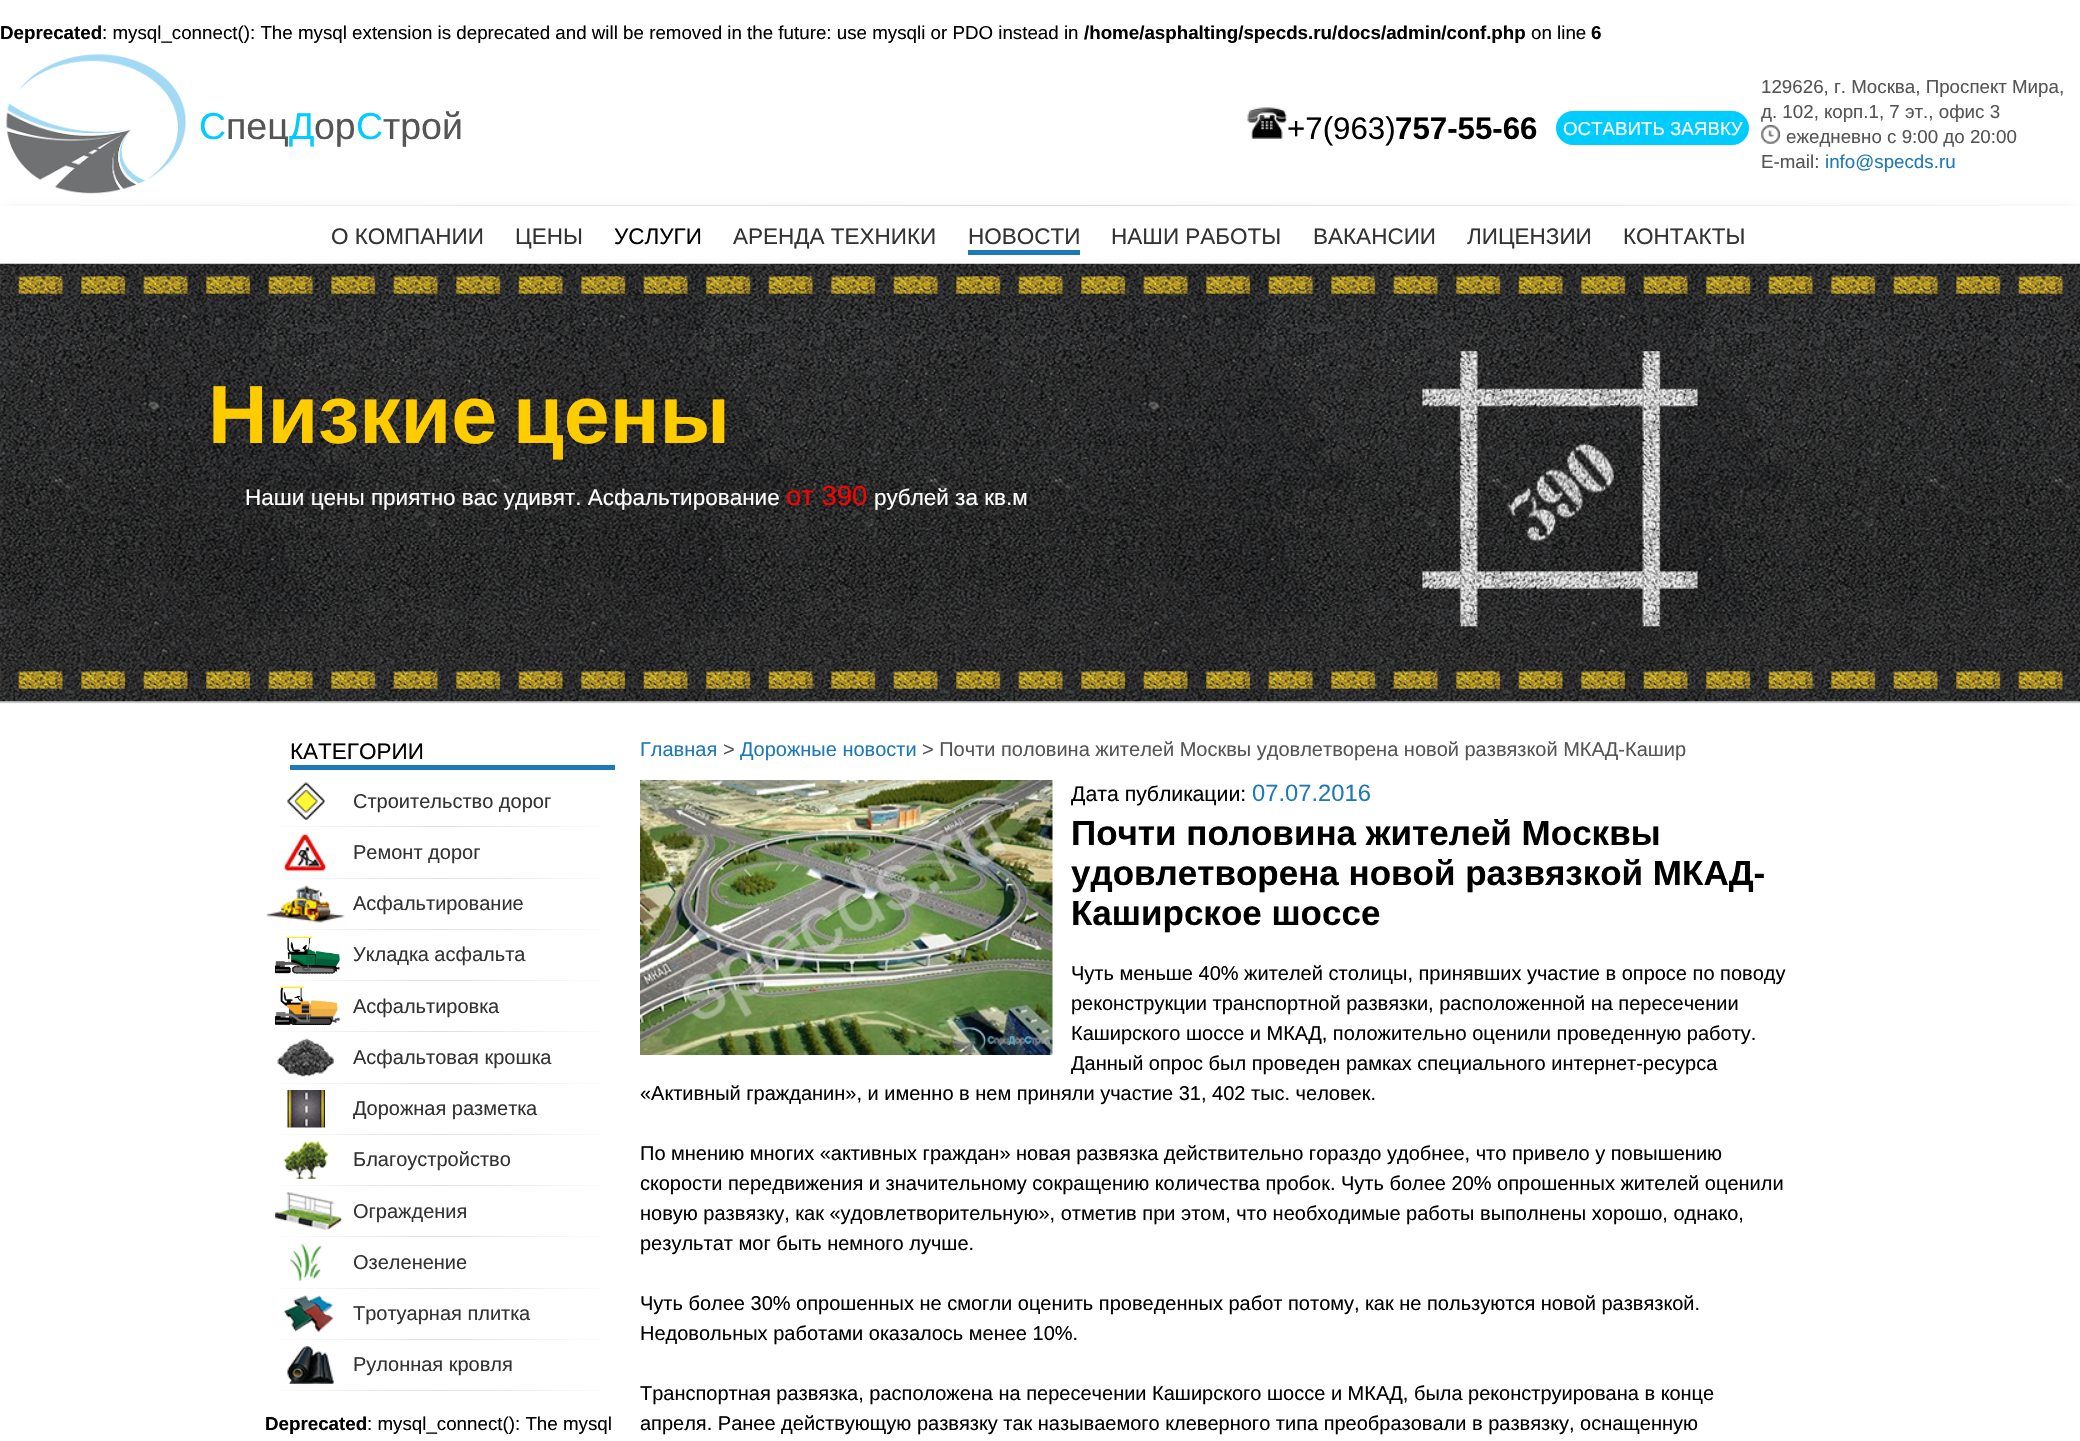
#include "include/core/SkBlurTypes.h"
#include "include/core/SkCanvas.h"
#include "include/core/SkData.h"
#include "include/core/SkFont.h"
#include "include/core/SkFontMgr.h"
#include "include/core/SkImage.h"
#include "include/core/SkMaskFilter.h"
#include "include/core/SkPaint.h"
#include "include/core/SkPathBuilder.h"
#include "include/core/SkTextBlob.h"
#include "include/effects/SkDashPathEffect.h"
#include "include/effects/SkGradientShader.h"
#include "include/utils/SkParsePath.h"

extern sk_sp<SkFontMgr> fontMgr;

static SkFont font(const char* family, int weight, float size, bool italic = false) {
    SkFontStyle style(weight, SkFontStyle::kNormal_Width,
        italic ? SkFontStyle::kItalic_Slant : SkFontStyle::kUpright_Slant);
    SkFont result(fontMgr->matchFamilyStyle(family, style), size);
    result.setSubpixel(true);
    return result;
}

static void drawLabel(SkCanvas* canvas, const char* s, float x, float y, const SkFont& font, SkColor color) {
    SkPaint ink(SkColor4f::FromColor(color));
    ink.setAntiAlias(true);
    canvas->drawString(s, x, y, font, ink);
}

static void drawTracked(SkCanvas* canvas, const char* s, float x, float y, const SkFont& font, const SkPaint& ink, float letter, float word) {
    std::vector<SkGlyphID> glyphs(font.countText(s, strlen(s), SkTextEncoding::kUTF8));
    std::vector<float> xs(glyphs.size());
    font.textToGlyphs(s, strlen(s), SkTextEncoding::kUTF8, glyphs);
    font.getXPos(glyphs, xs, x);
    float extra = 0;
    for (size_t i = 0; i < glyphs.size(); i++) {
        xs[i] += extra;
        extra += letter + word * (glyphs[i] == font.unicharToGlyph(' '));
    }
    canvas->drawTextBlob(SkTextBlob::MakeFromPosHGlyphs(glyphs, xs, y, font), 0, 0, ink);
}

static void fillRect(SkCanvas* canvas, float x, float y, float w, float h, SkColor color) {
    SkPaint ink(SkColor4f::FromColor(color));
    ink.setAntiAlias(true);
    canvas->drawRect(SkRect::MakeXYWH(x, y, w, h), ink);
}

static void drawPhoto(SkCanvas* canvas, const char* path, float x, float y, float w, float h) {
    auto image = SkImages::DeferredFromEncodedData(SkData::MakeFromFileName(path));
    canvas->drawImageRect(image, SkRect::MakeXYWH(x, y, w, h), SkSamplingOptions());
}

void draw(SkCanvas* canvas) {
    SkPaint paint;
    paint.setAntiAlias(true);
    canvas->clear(0xFFFFFFFF);
    SkFont font1 = font("Liberation Sans", 700, 18.75f);
    drawLabel(canvas, "Deprecated", 0, 39, font1, 0xFF000000);
    SkFont font2 = font("Liberation Sans", 400, 18.75f);
    drawLabel(canvas, ": mysql_connect(): The mysql extension is deprecated and will be removed in the future: use mysqli or PDO instead in", 102, 39, font2, 0xFF000000);
    drawLabel(canvas, "/home/asphalting/specds.ru/docs/admin/conf.php", 1084, 39, font1, 0xFF000000);
    drawLabel(canvas, "on line", 1531, 39, font2, 0xFF000000);
    drawLabel(canvas, "6", 1591, 39, font1, 0xFF000000);
    drawPhoto(canvas, "assets/img1.png", 6, 54, 181, 140);
    SkFont font3 = font("Liberation Sans", 400, 37.5f);
    drawLabel(canvas, "С", 199, 139, font3, 0xFF00CCFF);
    drawLabel(canvas, "пец", 226, 139, font3, 0xFF555555);
    drawLabel(canvas, "Д", 289, 139, font3, 0xFF00CCFF);
    drawLabel(canvas, "ор", 314, 139, font3, 0xFF555555);
    drawLabel(canvas, "С", 356, 139, font3, 0xFF00CCFF);
    drawLabel(canvas, "трой", 383, 139, font3, 0xFF555555);
    drawPhoto(canvas, "assets/img2.png", 1247, 107, 40, 32);
    SkFont font4 = font("Liberation Sans", 400, 31.25f);
    drawLabel(canvas, "+7(963)", 1287, 139, font4, 0xFF000000);
    SkFont font5 = font("Liberation Sans", 700, 31.25f);
    drawLabel(canvas, "757-55-66", 1395, 139, font5, 0xFF000000);
    paint.setColor(0xFF00CCFF);
    canvas->drawRoundRect(SkRect::MakeXYWH(1559, 114, 187, 28), 14, 14, paint);
    paint.setStroke(true);
    paint.setStrokeWidth(6);
    canvas->drawRoundRect(SkRect::MakeXYWH(1559, 114, 187, 28), 14, 14, paint);
    drawLabel(canvas, "ОСТАВИТЬ ЗАЯВКУ", 1563, 135, font2, 0xFFFFFFFF);
    drawLabel(canvas, "129626, г. Москва, Проспект Мира,", 1761, 93, font2, 0xFF555555);
    drawLabel(canvas, "д. 102, корп.1, 7 эт., офис 3", 1761, 118, font2, 0xFF555555);
    drawPhoto(canvas, "assets/img3.png", 1761, 125, 19, 19);
    drawLabel(canvas, "ежедневно с 9:00 до 20:00", 1786, 143, font2, 0xFF555555);
    drawLabel(canvas, "E-mail:", 1761, 168, font2, 0xFF555555);
    drawLabel(canvas, "info@specds.ru", 1825, 168, font2, 0xFF1E79B8);
    paint.setStroke(false);
    {
        const SkColor colors[] = {0xFFFFFFFF, 0xFFDEDEDE, 0xFFFFFFFF};
        const float stops[] = {0, 0.5f, 1};
        const SkPoint ends[] = {{0, 206}, {2080, 206}};
        paint.setShader(SkGradientShader::MakeLinear(ends, colors, stops, 3, SkTileMode::kClamp));
        paint.setAlpha(255);
    }
    canvas->drawRect(SkRect::MakeXYWH(79, 205, 1922, 1), paint);
    paint.setShader(nullptr);
    paint.setColor(0xFF999999);
    paint.setMaskFilter(SkMaskFilter::MakeBlur(kNormal_SkBlurStyle, 7));
    canvas->drawRect(SkRect::MakeXYWH(6, 216, 2068, 45), paint);
    paint.setMaskFilter(nullptr);
    fillRect(canvas, 0, 206, 2080, 58, 0xFFFFFFFF);
    SkFont font6 = font("Liberation Sans", 400, 22.5f);
    drawLabel(canvas, "О КОМПАНИИ", 331, 244, font6, 0xFF333333);
    drawLabel(canvas, "ЦЕНЫ", 515, 244, font6, 0xFF333333);
    drawLabel(canvas, "УСЛУГИ", 614, 244, font6, 0xFF000000);
    drawLabel(canvas, "АРЕНДА ТЕХНИКИ", 733, 244, font6, 0xFF333333);
    fillRect(canvas, 968, 250, 112, 5, 0xFF1E79B8);
    drawLabel(canvas, "НОВОСТИ", 968, 244, font6, 0xFF333333);
    drawLabel(canvas, "НАШИ РАБОТЫ", 1111, 244, font6, 0xFF333333);
    drawLabel(canvas, "ВАКАНСИИ", 1313, 244, font6, 0xFF333333);
    drawLabel(canvas, "ЛИЦЕНЗИИ", 1467, 244, font6, 0xFF333333);
    drawLabel(canvas, "КОНТАКТЫ", 1623, 244, font6, 0xFF333333);
    paint.setColor(0x33000000);
    paint.setMaskFilter(SkMaskFilter::MakeBlur(kNormal_SkBlurStyle, 0.5f));
    canvas->drawRect(SkRect::MakeXYWH(0, 265, 2080, 438), paint);
    paint.setMaskFilter(nullptr);
    drawPhoto(canvas, "assets/img4.png", 0, 263, 2080, 439);
    SkFont font7 = font("Liberation Sans", 700, 82.5f);
    paint.setColor(0xFFFFCC00);
    drawTracked(canvas, "Низкие цены", 208, 443, font7, paint, 0, -7);
    drawPhoto(canvas, "assets/img5.png", 1422, 351, 276, 276);
    drawLabel(canvas, "Наши цены приятно вас удивят. Асфальтирование", 245, 505, font6, 0xFFFFFFFF);
    SkFont font8 = font("Liberation Sans", 400, 27.5f);
    drawLabel(canvas, "от 390", 786, 505, font8, 0xFFFF0000);
    drawLabel(canvas, "рублей за кв.м", 874, 505, font6, 0xFFFFFFFF);
    fillRect(canvas, 290, 765, 325, 5, 0xFF1E79B8);
    drawLabel(canvas, "КАТЕГОРИИ", 290, 759, font6, 0xFF000000);
    drawPhoto(canvas, "assets/img6.png", 287, 782, 38, 38);
    SkFont font9 = font("Liberation Sans", 400, 20);
    drawLabel(canvas, "Строительство дорог", 353, 808, font9, 0xFF333333);
    {
        const SkColor colors[] = {0xFFFFFFFF, 0xFFDEDEDE, 0xFFFFFFFF};
        const float stops[] = {0, 0.5f, 1};
        const SkPoint ends[] = {{265, 827}, {615, 827}};
        paint.setShader(SkGradientShader::MakeLinear(ends, colors, stops, 3, SkTileMode::kClamp));
        paint.setAlpha(255);
    }
    canvas->drawRect(SkRect::MakeXYWH(278, 826, 324, 1), paint);
    drawPhoto(canvas, "assets/img7.png", 283, 833, 44, 39);
    drawLabel(canvas, "Ремонт дорог", 353, 859, font9, 0xFF333333);
    {
        const SkColor colors[] = {0xFFFFFFFF, 0xFFDEDEDE, 0xFFFFFFFF};
        const float stops[] = {0, 0.5f, 1};
        const SkPoint ends[] = {{265, 878}, {615, 878}};
        paint.setShader(SkGradientShader::MakeLinear(ends, colors, stops, 3, SkTileMode::kClamp));
        paint.setAlpha(255);
    }
    canvas->drawRect(SkRect::MakeXYWH(278, 878, 324, 1), paint);
    drawPhoto(canvas, "assets/img8.png", 266, 885, 79, 38);
    drawLabel(canvas, "Асфальтирование", 353, 910, font9, 0xFF333333);
    {
        const SkColor colors[] = {0xFFFFFFFF, 0xFFDEDEDE, 0xFFFFFFFF};
        const float stops[] = {0, 0.5f, 1};
        const SkPoint ends[] = {{265, 929}, {615, 929}};
        paint.setShader(SkGradientShader::MakeLinear(ends, colors, stops, 3, SkTileMode::kClamp));
        paint.setAlpha(255);
    }
    canvas->drawRect(SkRect::MakeXYWH(278, 929, 324, 1), paint);
    drawPhoto(canvas, "assets/img9.png", 275, 936, 65, 38);
    drawLabel(canvas, "Укладка асфальта", 353, 961, font9, 0xFF333333);
    {
        const SkColor colors[] = {0xFFFFFFFF, 0xFFDEDEDE, 0xFFFFFFFF};
        const float stops[] = {0, 0.5f, 1};
        const SkPoint ends[] = {{265, 981}, {615, 981}};
        paint.setShader(SkGradientShader::MakeLinear(ends, colors, stops, 3, SkTileMode::kClamp));
        paint.setAlpha(255);
    }
    canvas->drawRect(SkRect::MakeXYWH(278, 980, 324, 1), paint);
    drawPhoto(canvas, "assets/img10.png", 275, 986, 65, 39);
    drawLabel(canvas, "Асфальтировка", 353, 1013, font9, 0xFF333333);
    {
        const SkColor colors[] = {0xFFFFFFFF, 0xFFDEDEDE, 0xFFFFFFFF};
        const float stops[] = {0, 0.5f, 1};
        const SkPoint ends[] = {{265, 1032}, {615, 1032}};
        paint.setShader(SkGradientShader::MakeLinear(ends, colors, stops, 3, SkTileMode::kClamp));
        paint.setAlpha(255);
    }
    canvas->drawRect(SkRect::MakeXYWH(278, 1031, 324, 1), paint);
    drawPhoto(canvas, "assets/img11.png", 277, 1038, 57, 39);
    drawLabel(canvas, "Асфальтовая крошка", 353, 1064, font9, 0xFF333333);
    {
        const SkColor colors[] = {0xFFFFFFFF, 0xFFDEDEDE, 0xFFFFFFFF};
        const float stops[] = {0, 0.5f, 1};
        const SkPoint ends[] = {{265, 1083}, {615, 1083}};
        paint.setShader(SkGradientShader::MakeLinear(ends, colors, stops, 3, SkTileMode::kClamp));
        paint.setAlpha(255);
    }
    canvas->drawRect(SkRect::MakeXYWH(278, 1083, 324, 1), paint);
    drawPhoto(canvas, "assets/img12.png", 287, 1090, 38, 38);
    drawLabel(canvas, "Дорожная разметка", 353, 1115, font9, 0xFF333333);
    {
        const SkColor colors[] = {0xFFFFFFFF, 0xFFDEDEDE, 0xFFFFFFFF};
        const float stops[] = {0, 0.5f, 1};
        const SkPoint ends[] = {{265, 1134}, {615, 1134}};
        paint.setShader(SkGradientShader::MakeLinear(ends, colors, stops, 3, SkTileMode::kClamp));
        paint.setAlpha(255);
    }
    canvas->drawRect(SkRect::MakeXYWH(278, 1134, 324, 1), paint);
    drawPhoto(canvas, "assets/img13.png", 283, 1141, 46, 38);
    drawLabel(canvas, "Благоустройство", 353, 1166, font9, 0xFF333333);
    {
        const SkColor colors[] = {0xFFFFFFFF, 0xFFDEDEDE, 0xFFFFFFFF};
        const float stops[] = {0, 0.5f, 1};
        const SkPoint ends[] = {{265, 1186}, {615, 1186}};
        paint.setShader(SkGradientShader::MakeLinear(ends, colors, stops, 3, SkTileMode::kClamp));
        paint.setAlpha(255);
    }
    canvas->drawRect(SkRect::MakeXYWH(278, 1185, 324, 1), paint);
    drawPhoto(canvas, "assets/img14.png", 275, 1192, 67, 38);
    drawLabel(canvas, "Ограждения", 353, 1218, font9, 0xFF333333);
    {
        const SkColor colors[] = {0xFFFFFFFF, 0xFFDEDEDE, 0xFFFFFFFF};
        const float stops[] = {0, 0.5f, 1};
        const SkPoint ends[] = {{265, 1237}, {615, 1237}};
        paint.setShader(SkGradientShader::MakeLinear(ends, colors, stops, 3, SkTileMode::kClamp));
        paint.setAlpha(255);
    }
    canvas->drawRect(SkRect::MakeXYWH(278, 1236, 324, 1), paint);
    drawPhoto(canvas, "assets/img15.png", 290, 1243, 32, 39);
    drawLabel(canvas, "Озеленение", 353, 1269, font9, 0xFF333333);
    {
        const SkColor colors[] = {0xFFFFFFFF, 0xFFDEDEDE, 0xFFFFFFFF};
        const float stops[] = {0, 0.5f, 1};
        const SkPoint ends[] = {{265, 1288}, {615, 1288}};
        paint.setShader(SkGradientShader::MakeLinear(ends, colors, stops, 3, SkTileMode::kClamp));
        paint.setAlpha(255);
    }
    canvas->drawRect(SkRect::MakeXYWH(278, 1288, 324, 1), paint);
    drawPhoto(canvas, "assets/img16.png", 283, 1295, 51, 38);
    drawLabel(canvas, "Тротуарная плитка", 353, 1320, font9, 0xFF333333);
    {
        const SkColor colors[] = {0xFFFFFFFF, 0xFFDEDEDE, 0xFFFFFFFF};
        const float stops[] = {0, 0.5f, 1};
        const SkPoint ends[] = {{265, 1339}, {615, 1339}};
        paint.setShader(SkGradientShader::MakeLinear(ends, colors, stops, 3, SkTileMode::kClamp));
        paint.setAlpha(255);
    }
    canvas->drawRect(SkRect::MakeXYWH(278, 1339, 324, 1), paint);
    drawPhoto(canvas, "assets/img17.png", 287, 1346, 47, 38);
    drawLabel(canvas, "Рулонная кровля", 353, 1371, font9, 0xFF333333);
    {
        const SkColor colors[] = {0xFFFFFFFF, 0xFFDEDEDE, 0xFFFFFFFF};
        const float stops[] = {0, 0.5f, 1};
        const SkPoint ends[] = {{265, 1391}, {615, 1391}};
        paint.setShader(SkGradientShader::MakeLinear(ends, colors, stops, 3, SkTileMode::kClamp));
        paint.setAlpha(255);
    }
    canvas->drawRect(SkRect::MakeXYWH(278, 1390, 324, 1), paint);
    drawLabel(canvas, "Deprecated", 265, 1430, font1, 0xFF000000);
    drawLabel(canvas, ": mysql_connect(): The mysql", 367, 1430, font2, 0xFF000000);
    drawLabel(canvas, "Главная", 640, 756, font9, 0xFF1E79B8);
    drawLabel(canvas, ">", 723, 756, font9, 0xFF555555);
    drawLabel(canvas, "Дорожные новости", 740, 756, font9, 0xFF1E79B8);
    drawLabel(canvas, "> Почти половина жителей Москвы удовлетворена новой развязкой МКАД-Кашир", 922, 756, font9, 0xFF555555);
    drawPhoto(canvas, "assets/img18.png", 640, 780, 413, 275);
    SkFont font10 = font("Liberation Sans", 400, 21.25f);
    drawLabel(canvas, "Дата публикации:", 1071, 801, font10, 0xFF000000);
    SkFont font11 = font("Liberation Sans", 400, 23.75f);
    drawLabel(canvas, "07.07.2016", 1252, 801, font11, 0xFF1E79B8);
    SkFont font12 = font("Liberation Sans", 700, 35);
    drawLabel(canvas, "Почти половина жителей Москвы", 1071, 845, font12, 0xFF000000);
    drawLabel(canvas, "удовлетворена новой развязкой МКАД-", 1071, 885, font12, 0xFF000000);
    drawLabel(canvas, "Каширское шоссе", 1071, 925, font12, 0xFF000000);
    drawLabel(canvas, "Чуть меньше 40% жителей столицы, принявших участие в опросе по поводу", 1071, 980, font9, 0xFF000000);
    drawLabel(canvas, "реконструкции транспортной развязки, расположенной на пересечении", 1071, 1010, font9, 0xFF000000);
    drawLabel(canvas, "Каширского шоссе и МКАД, положительно оценили проведенную работу.", 1071, 1040, font9, 0xFF000000);
    drawLabel(canvas, "Данный опрос был проведен рамках специального интернет-ресурса", 1071, 1070, font9, 0xFF000000);
    drawLabel(canvas, "«Активный гражданин», и именно в нем приняли участие 31, 402 тыс. человек.", 640, 1100, font9, 0xFF000000);
    drawLabel(canvas, "По мнению многих «активных граждан» новая развязка действительно гораздо удобнее, что привело у повышению", 640, 1160, font9, 0xFF000000);
    drawLabel(canvas, "скорости передвижения и значительному сокращению количества пробок. Чуть более 20% опрошенных жителей оценили", 640, 1190, font9, 0xFF000000);
    drawLabel(canvas, "новую развязку, как «удовлетворительную», отметив при этом, что необходимые работы выполнены хорошо, однако,", 640, 1220, font9, 0xFF000000);
    drawLabel(canvas, "результат мог быть немного лучше.", 640, 1250, font9, 0xFF000000);
    drawLabel(canvas, "Чуть более 30% опрошенных не смогли оценить проведенных работ потому, как не пользуются новой развязкой.", 640, 1310, font9, 0xFF000000);
    drawLabel(canvas, "Недовольных работами оказалось менее 10%.", 640, 1340, font9, 0xFF000000);
    drawLabel(canvas, "Транспортная развязка, расположена на пересечении Каширского шоссе и МКАД, была реконструирована в конце", 640, 1400, font9, 0xFF000000);
    drawLabel(canvas, "апреля. Ранее действующую развязку так называемого клеверного типа преобразовали в развязку, оснащенную", 640, 1430, font9, 0xFF000000);
}
